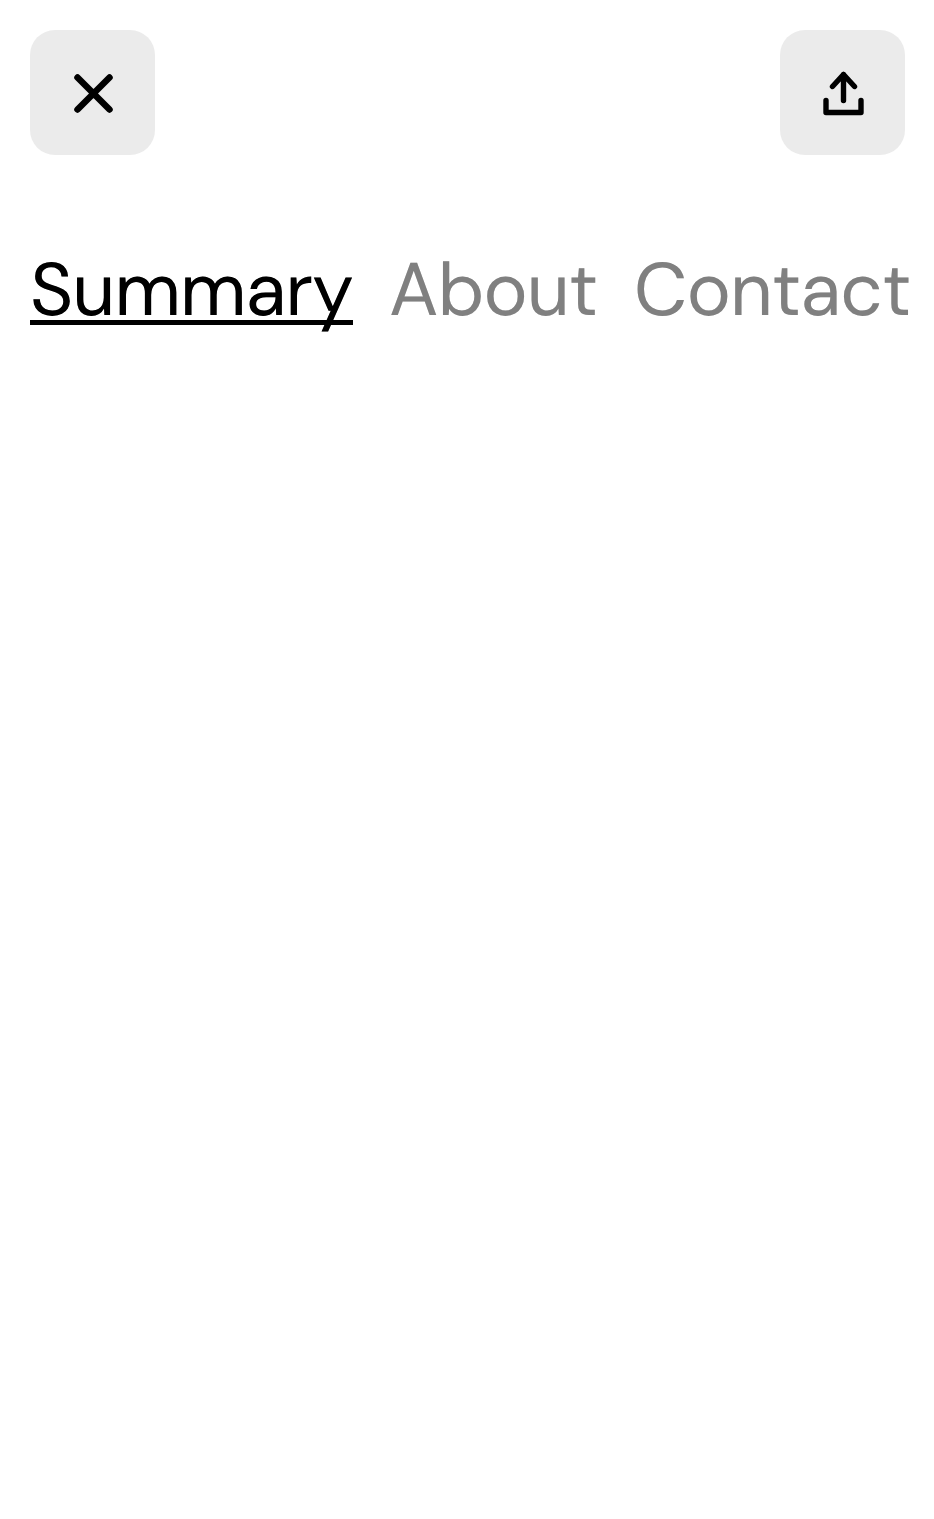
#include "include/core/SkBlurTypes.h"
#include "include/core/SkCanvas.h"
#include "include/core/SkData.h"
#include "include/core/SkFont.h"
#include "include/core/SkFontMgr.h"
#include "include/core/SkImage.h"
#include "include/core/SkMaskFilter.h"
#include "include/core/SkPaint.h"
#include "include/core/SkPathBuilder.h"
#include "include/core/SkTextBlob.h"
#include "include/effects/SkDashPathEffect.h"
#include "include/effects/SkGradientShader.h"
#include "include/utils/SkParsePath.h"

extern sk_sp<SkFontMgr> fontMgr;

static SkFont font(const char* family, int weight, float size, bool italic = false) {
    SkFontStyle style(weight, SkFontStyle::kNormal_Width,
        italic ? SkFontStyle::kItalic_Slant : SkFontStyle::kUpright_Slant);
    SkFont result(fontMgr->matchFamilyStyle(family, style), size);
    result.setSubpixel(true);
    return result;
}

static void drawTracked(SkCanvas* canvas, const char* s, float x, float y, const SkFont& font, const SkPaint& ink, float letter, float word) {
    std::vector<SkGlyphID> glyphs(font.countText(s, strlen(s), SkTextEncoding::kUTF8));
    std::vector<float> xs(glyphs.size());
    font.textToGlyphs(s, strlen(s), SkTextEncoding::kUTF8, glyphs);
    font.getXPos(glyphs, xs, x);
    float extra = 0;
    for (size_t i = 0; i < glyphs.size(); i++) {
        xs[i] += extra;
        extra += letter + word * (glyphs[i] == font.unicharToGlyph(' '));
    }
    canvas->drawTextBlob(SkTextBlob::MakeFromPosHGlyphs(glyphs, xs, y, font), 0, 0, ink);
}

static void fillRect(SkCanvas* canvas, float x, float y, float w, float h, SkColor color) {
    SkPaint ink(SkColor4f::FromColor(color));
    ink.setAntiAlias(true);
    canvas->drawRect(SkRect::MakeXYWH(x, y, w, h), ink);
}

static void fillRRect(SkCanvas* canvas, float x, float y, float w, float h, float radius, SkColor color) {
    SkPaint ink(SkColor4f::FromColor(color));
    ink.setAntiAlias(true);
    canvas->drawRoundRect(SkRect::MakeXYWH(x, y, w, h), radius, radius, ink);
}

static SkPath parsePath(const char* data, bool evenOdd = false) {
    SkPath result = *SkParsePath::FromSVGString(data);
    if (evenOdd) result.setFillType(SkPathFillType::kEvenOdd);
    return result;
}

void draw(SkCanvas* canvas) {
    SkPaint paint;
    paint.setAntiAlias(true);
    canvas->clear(0xFFFFFFFF);
    fillRRect(canvas, 30, 30, 125, 125, 25, 0xFFEBEBEB);
    paint.setStroke(true);
    paint.setStrokeWidth(6.5f);
    paint.setStrokeCap(SkPaint::kRound_Cap);
    paint.setStrokeJoin(SkPaint::kRound_Join);
    paint.setColor(0xFF000000);
    canvas->drawPath(parsePath("M77.5 77.5L109.5 109.5M109.5 77.5L77.5 109.5"), paint);
    fillRRect(canvas, 780, 30, 125, 125, 25, 0xFFEBEBEB);
    paint.setStrokeWidth(5.4f);
    canvas->drawPath(parsePath("M832.5 86.5L843.5 74.5L854.5 86.5M843.5 74.5V100.5M826 100.5V112.5H861V100.5"), paint);
    fillRect(canvas, 30, 320, 323, 5, 0xFF000000);
    SkFont font1 = font("DM Sans", 400, 74.5f);
    paint.setStroke(false);
    drawTracked(canvas, "Summary", 30, 315, font1, paint, -0.75f, 0);
    paint.setColor(0xFF808080);
    drawTracked(canvas, "About", 389, 315, font1, paint, -0.75f, 0);
    drawTracked(canvas, "Contact", 634, 315, font1, paint, -0.75f, 0);
}
